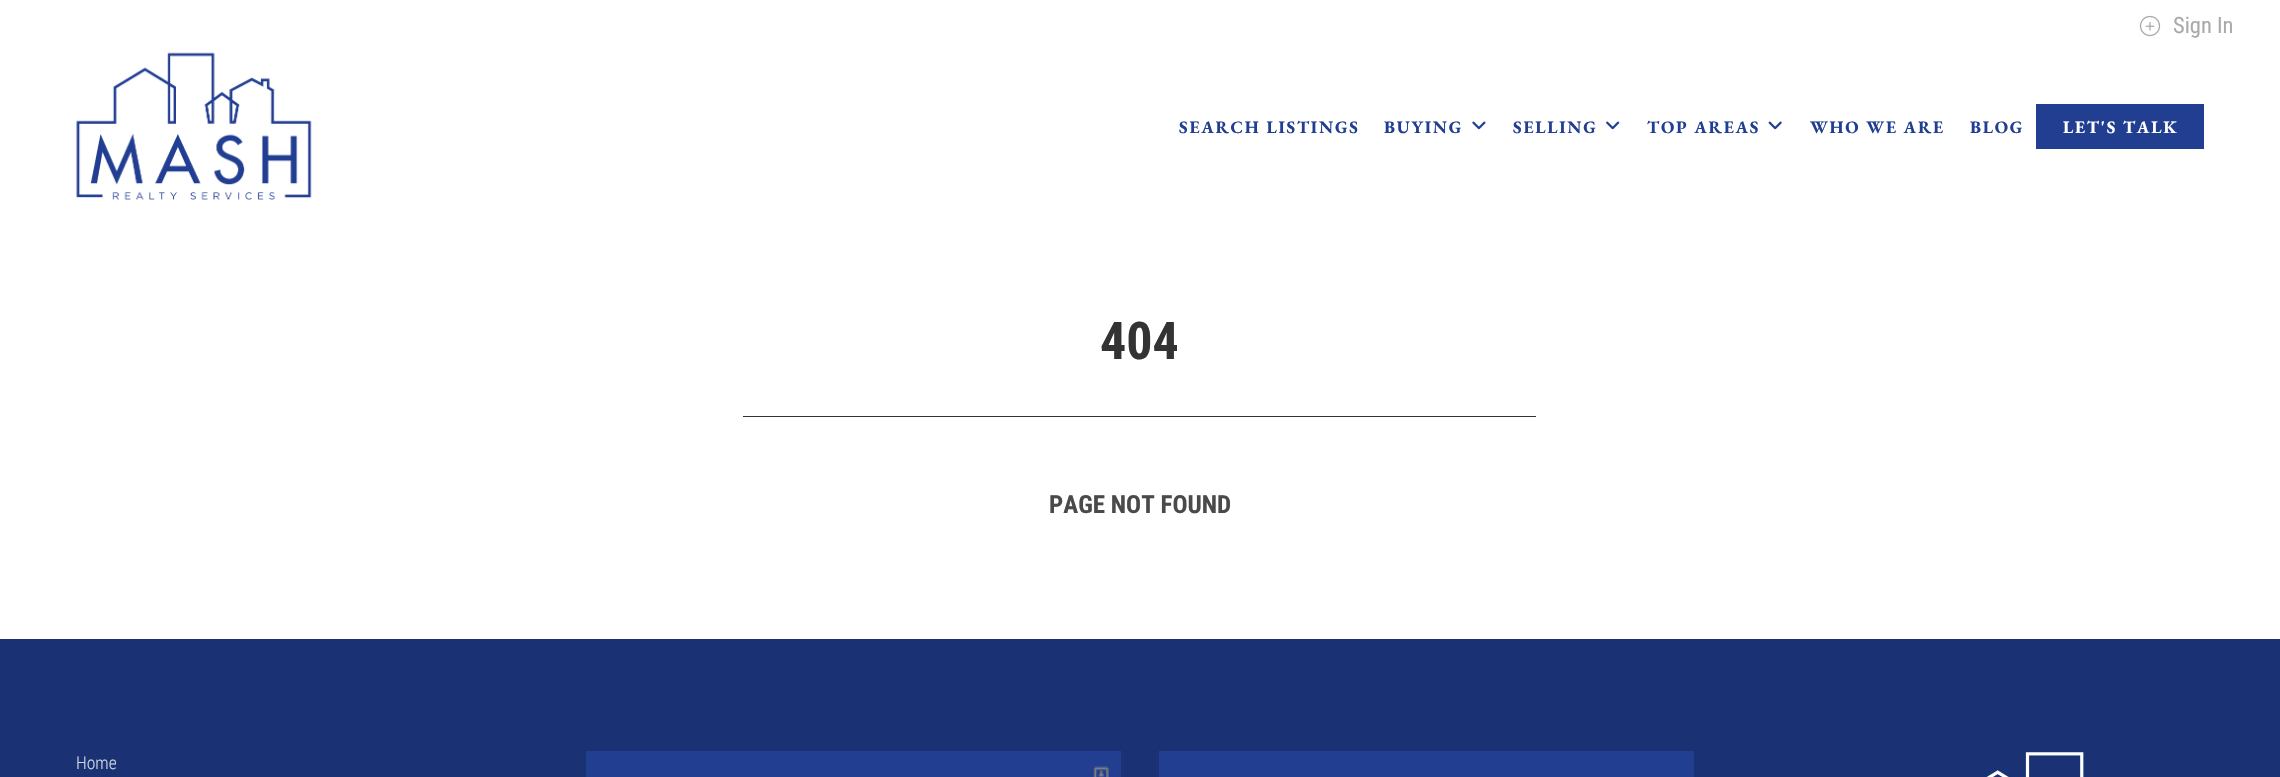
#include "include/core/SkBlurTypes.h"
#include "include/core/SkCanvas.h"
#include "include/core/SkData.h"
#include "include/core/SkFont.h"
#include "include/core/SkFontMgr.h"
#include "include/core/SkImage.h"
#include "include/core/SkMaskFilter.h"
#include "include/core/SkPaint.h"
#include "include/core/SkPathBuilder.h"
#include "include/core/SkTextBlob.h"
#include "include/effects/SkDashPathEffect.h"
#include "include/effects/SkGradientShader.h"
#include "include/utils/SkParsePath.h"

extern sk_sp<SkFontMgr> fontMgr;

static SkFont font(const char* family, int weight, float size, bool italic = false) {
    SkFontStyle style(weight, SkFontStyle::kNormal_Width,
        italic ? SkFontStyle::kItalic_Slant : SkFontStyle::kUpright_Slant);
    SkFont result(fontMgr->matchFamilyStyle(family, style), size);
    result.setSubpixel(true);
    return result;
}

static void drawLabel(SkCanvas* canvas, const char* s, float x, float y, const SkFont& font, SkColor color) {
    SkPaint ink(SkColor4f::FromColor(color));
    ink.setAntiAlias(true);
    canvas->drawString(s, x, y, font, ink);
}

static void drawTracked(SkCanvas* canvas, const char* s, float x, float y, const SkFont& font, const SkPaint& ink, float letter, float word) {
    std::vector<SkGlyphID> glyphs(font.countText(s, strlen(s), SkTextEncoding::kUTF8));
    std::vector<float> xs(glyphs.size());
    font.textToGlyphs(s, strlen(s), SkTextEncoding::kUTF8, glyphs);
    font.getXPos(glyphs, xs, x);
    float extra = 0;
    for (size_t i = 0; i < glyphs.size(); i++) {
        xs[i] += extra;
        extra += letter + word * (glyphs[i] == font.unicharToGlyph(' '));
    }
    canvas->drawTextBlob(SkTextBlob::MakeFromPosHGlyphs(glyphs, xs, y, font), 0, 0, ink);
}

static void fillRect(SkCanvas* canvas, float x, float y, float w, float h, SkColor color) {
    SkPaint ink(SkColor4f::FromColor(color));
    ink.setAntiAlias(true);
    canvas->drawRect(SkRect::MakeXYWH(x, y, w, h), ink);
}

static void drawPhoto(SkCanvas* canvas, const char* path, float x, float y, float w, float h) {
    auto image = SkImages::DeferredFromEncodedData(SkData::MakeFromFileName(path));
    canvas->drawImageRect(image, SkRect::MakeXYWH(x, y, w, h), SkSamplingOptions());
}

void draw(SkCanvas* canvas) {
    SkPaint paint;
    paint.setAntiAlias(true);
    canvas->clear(0xFFFFFFFF);
    drawPhoto(canvas, "assets/img1.png", 2139, 15, 22, 22);
    SkFont font1 = font("Roboto Condensed", 400, 22.5f);
    drawLabel(canvas, "Sign In", 2173, 33, font1, 0xFFAAAAAA);
    drawPhoto(canvas, "assets/img2.png", 76, 52, 236, 148);
    SkFont font2 = font("EB Garamond", 700, 17.5f);
    paint.setColor(0xFF213E91);
    drawTracked(canvas, "SEARCH LISTINGS", 1179, 133, font2, paint, 1.75f, 0);
    drawTracked(canvas, "BUYING", 1384, 133, font2, paint, 1.75f, 0);
    drawPhoto(canvas, "assets/img3.png", 1472, 121, 14, 9);
    drawTracked(canvas, "SELLING", 1513, 133, font2, paint, 1.75f, 0);
    drawPhoto(canvas, "assets/img4.png", 1606, 121, 14, 9);
    drawTracked(canvas, "TOP AREAS", 1647, 133, font2, paint, 1.75f, 0);
    drawPhoto(canvas, "assets/img5.png", 1768, 121, 14, 9);
    drawTracked(canvas, "WHO WE ARE", 1810, 133, font2, paint, 1.75f, 0);
    drawTracked(canvas, "BLOG", 1970, 133, font2, paint, 1.75f, 0);
    fillRect(canvas, 2036, 104, 168, 45, 0xFF213E91);
    paint.setColor(0xFFFFFFFF);
    drawTracked(canvas, "LET'S TALK", 2063, 133, font2, paint, 1.75f, 0);
    SkFont font3 = font("Roboto Condensed", 700, 52);
    drawLabel(canvas, "404", 1100, 359, font3, 0xFF333333);
    fillRect(canvas, 743, 416, 793, 1, 0xFF333333);
    SkFont font4 = font("Roboto Condensed", 700, 25);
    drawLabel(canvas, "PAGE NOT FOUND", 1049, 513, font4, 0xFF4A4A4A);
    fillRect(canvas, 0, 639, 2280, 138, 0xFF1A3274);
    SkFont font5 = font("Roboto Condensed", 300, 17.5f);
    drawLabel(canvas, "Home", 76, 769, font5, 0xFFD1D6E3);
    fillRect(canvas, 586, 751, 535, 26, 0xFF213E91);
    drawPhoto(canvas, "assets/img6.png", 1093, 766, 16, 11);
    fillRect(canvas, 1159, 751, 535, 26, 0xFF213E91);
    drawPhoto(canvas, "assets/img7.png", 1986, 752, 98, 25);
}
